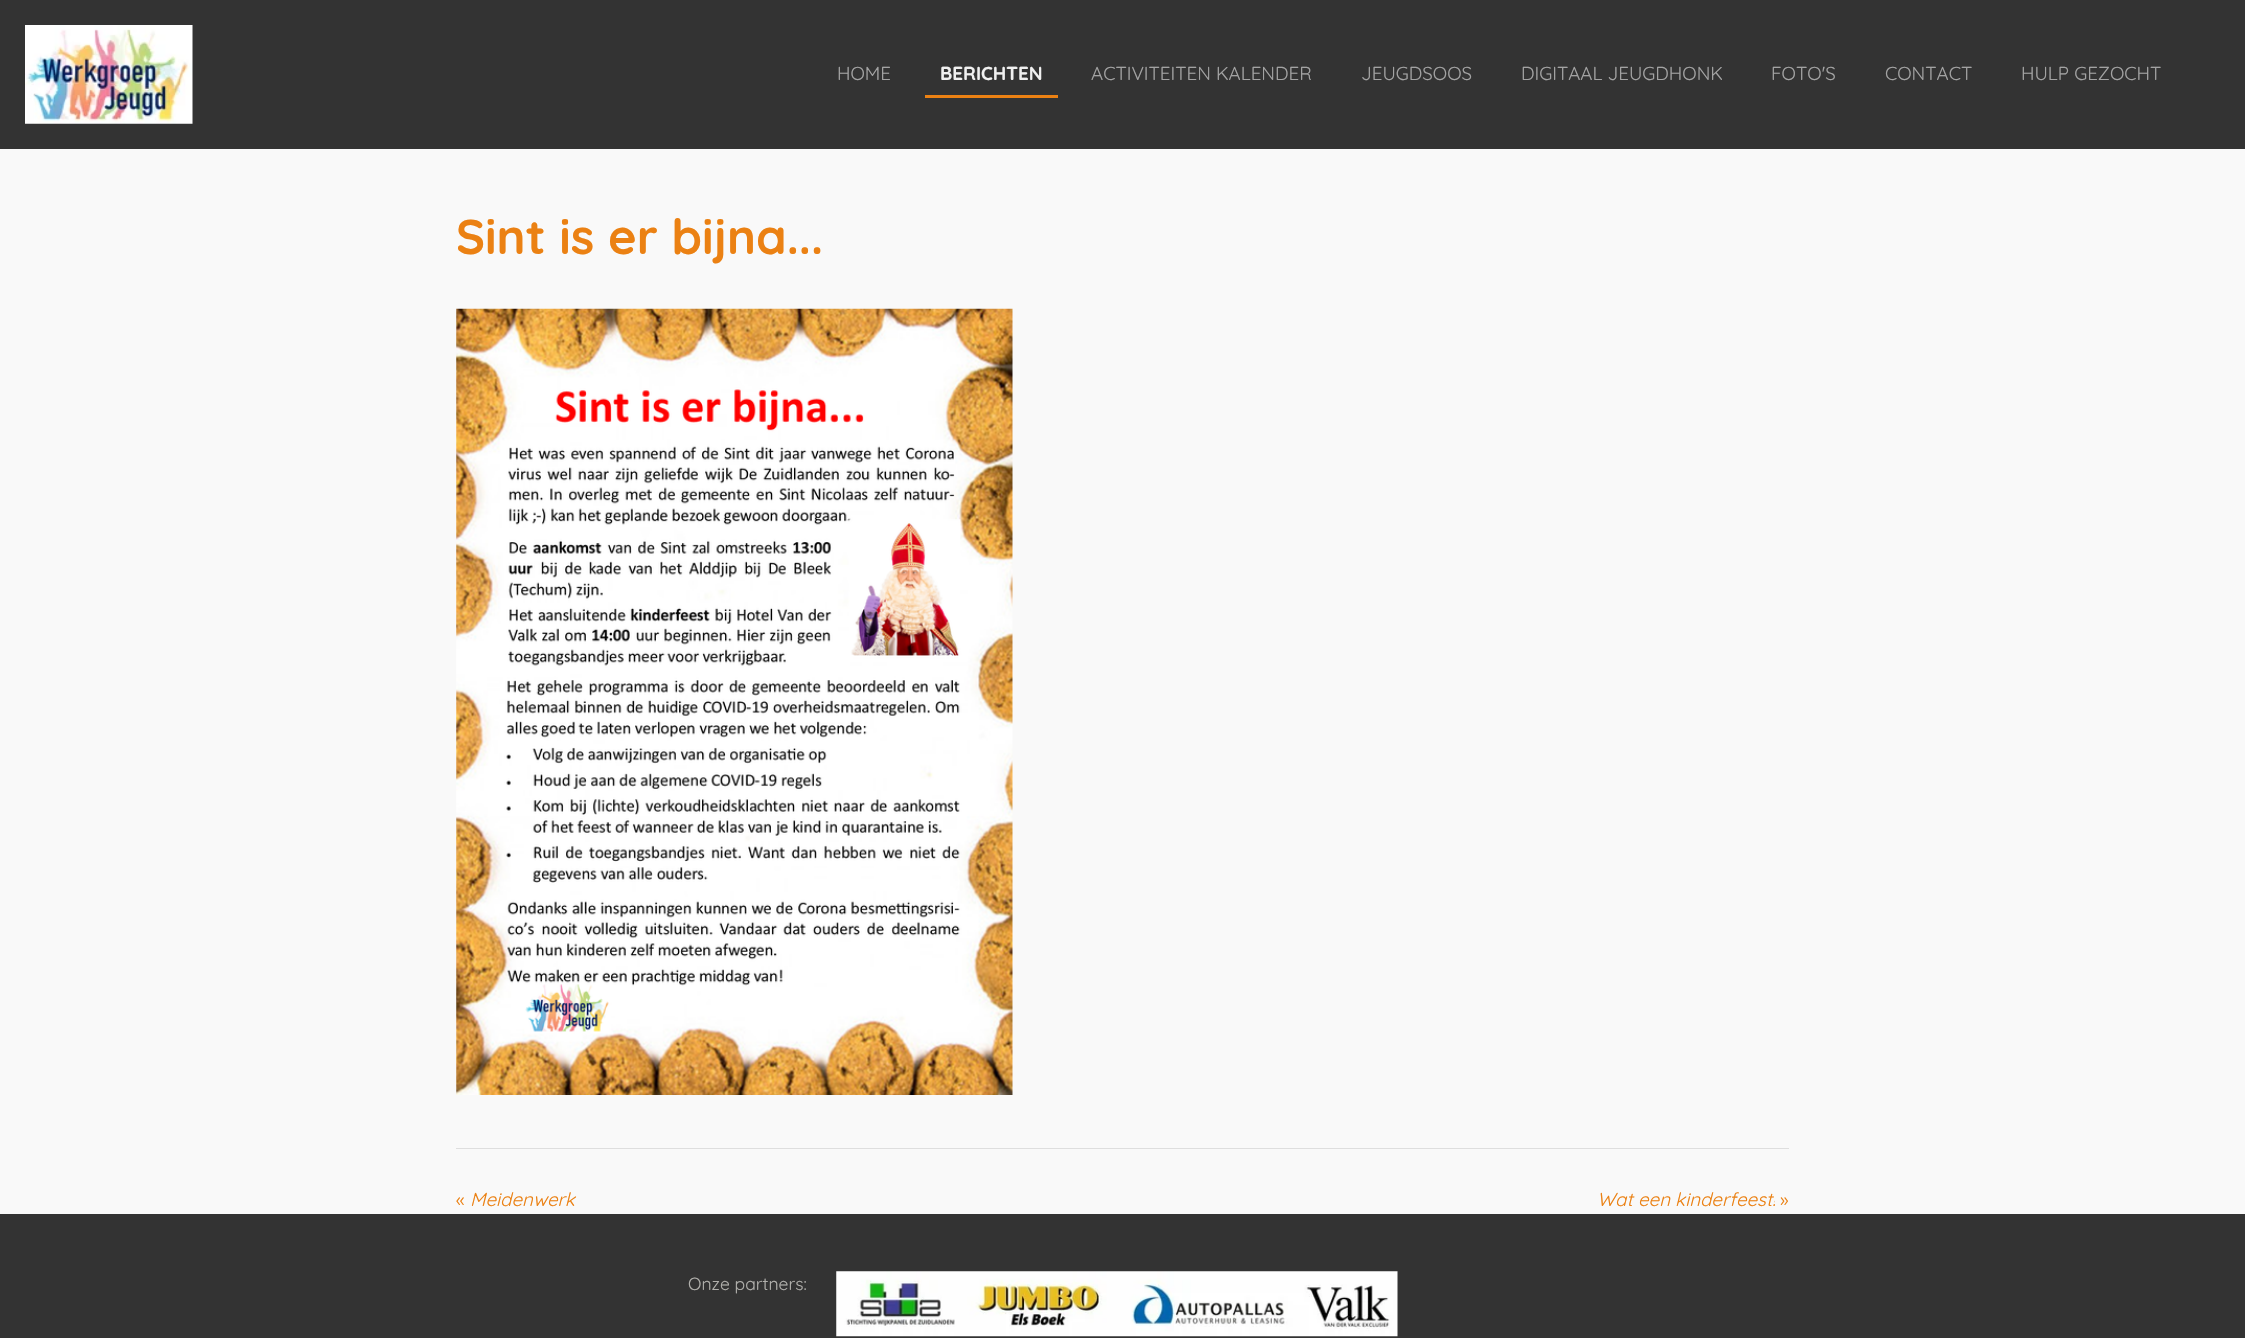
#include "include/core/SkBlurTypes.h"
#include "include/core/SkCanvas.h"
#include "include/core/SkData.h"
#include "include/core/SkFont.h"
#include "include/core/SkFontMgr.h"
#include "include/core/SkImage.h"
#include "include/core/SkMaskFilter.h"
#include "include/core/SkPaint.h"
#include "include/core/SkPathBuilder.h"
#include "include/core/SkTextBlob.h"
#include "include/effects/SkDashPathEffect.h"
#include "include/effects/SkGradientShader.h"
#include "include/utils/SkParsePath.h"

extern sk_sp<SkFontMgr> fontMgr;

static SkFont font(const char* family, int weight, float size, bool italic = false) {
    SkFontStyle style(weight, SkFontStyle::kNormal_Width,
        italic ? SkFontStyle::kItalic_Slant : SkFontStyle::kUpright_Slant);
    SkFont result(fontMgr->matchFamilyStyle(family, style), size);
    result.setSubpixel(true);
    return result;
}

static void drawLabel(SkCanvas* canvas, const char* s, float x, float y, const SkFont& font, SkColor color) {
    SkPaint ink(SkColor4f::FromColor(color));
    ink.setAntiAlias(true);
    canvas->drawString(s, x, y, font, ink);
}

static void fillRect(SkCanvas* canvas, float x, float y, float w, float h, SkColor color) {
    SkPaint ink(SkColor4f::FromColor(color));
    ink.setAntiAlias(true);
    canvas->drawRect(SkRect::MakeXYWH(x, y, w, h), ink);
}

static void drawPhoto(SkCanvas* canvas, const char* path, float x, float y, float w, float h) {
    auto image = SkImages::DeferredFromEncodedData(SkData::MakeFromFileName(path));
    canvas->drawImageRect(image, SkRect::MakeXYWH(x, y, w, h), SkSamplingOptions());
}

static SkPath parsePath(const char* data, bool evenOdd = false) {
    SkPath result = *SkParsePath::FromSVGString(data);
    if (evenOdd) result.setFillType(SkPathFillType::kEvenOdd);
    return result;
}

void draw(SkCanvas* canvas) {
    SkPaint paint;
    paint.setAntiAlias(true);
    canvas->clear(0xFF333333);
    drawPhoto(canvas, "assets/img1.png", 25, 25, 168, 99);
    SkFont font1 = font("Quicksand", 400, 18.75f);
    drawLabel(canvas, "HOME", 837, 80, font1, 0xFFA3A3A3);
    paint.setColor(0xFFEB8113);
    canvas->drawPath(parsePath("M925 95V98H1058V56V95Z"), paint);
    SkFont font2 = font("Quicksand", 700, 18.75f);
    drawLabel(canvas, "BERICHTEN", 940, 80, font2, 0xFFF0F0F0);
    drawLabel(canvas, "ACTIVITEITEN KALENDER", 1091, 80, font1, 0xFFA3A3A3);
    drawLabel(canvas, "JEUGDSOOS", 1361, 80, font1, 0xFFA3A3A3);
    drawLabel(canvas, "DIGITAAL JEUGDHONK", 1521, 80, font1, 0xFFA3A3A3);
    drawLabel(canvas, "FOTO'S", 1771, 80, font1, 0xFFA3A3A3);
    drawLabel(canvas, "CONTACT", 1885, 80, font1, 0xFFA3A3A3);
    drawLabel(canvas, "HULP GEZOCHT", 2021, 80, font1, 0xFFA3A3A3);
    fillRect(canvas, 0, 149, 2245, 1065, 0xFFF9F9F9);
    SkFont font3 = font("Quicksand", 700, 48.75f);
    drawLabel(canvas, "Sint is er bijna...", 456, 254, font3, 0xFFEB8113);
    drawPhoto(canvas, "assets/img2.png", 456, 308, 557, 787);
    fillRect(canvas, 456, 1148, 1333, 1, 0xFFDEDEDE);
    drawLabel(canvas, "«", 456, 1206, font1, 0xFFEB8113);
    SkFont font4 = font("Quicksand", 400, 18.75f, true);
    drawLabel(canvas, "Meidenwerk", 470, 1206, font4, 0xFFEB8113);
    canvas->save();
    canvas->clipRect(SkRect::MakeXYWH(1596, 1186, 179, 28));
    drawLabel(canvas, "Wat een kinderfeest!", 1597, 1206, font4, 0xFFEB8113);
    canvas->restore();
    drawLabel(canvas, "»", 1780, 1206, font1, 0xFFEB8113);
    SkFont font5 = font("Quicksand", 400, 17.5f);
    drawLabel(canvas, "Onze partners:", 688, 1290, font5, 0xFFB1B0AC);
    drawPhoto(canvas, "assets/img3.png", 836, 1271, 562, 66);
}
